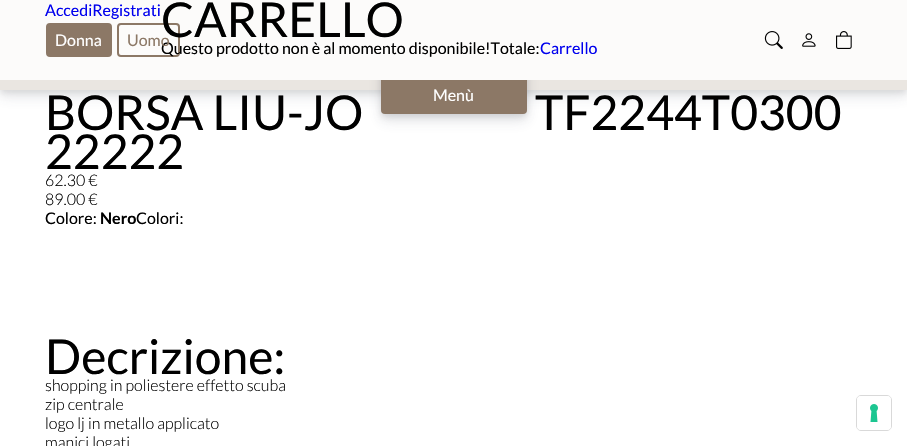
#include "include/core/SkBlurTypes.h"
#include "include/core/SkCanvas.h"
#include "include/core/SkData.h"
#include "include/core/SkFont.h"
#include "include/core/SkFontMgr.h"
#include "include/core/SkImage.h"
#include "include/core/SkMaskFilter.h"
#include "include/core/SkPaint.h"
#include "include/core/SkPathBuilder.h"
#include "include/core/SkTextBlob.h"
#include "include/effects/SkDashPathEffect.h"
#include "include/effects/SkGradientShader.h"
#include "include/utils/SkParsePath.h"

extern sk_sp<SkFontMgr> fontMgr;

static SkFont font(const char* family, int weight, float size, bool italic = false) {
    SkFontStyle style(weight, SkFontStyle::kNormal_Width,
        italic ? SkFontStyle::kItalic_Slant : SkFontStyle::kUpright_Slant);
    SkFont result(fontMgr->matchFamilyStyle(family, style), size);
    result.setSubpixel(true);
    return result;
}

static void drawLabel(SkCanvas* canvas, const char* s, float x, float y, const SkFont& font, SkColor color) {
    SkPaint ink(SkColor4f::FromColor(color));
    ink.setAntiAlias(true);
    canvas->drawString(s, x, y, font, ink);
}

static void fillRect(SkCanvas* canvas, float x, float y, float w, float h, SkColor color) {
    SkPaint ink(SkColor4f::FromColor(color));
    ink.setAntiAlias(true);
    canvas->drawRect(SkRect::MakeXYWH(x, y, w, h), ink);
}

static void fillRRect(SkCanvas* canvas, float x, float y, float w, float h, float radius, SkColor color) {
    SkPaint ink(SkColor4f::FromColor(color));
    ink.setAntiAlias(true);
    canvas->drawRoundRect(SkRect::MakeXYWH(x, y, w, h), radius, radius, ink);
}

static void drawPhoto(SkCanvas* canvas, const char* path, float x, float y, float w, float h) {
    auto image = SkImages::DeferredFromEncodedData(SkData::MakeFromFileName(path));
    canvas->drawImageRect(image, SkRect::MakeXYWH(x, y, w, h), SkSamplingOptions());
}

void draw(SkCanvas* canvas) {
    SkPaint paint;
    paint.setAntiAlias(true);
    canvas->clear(0xFFFFFFFF);
    paint.setColor(0x1F000000);
    paint.setMaskFilter(SkMaskFilter::MakeBlur(kNormal_SkBlurStyle, 3));
    canvas->drawRect(SkRect::MakeXYWH(0, 83, 907, 10), paint);
    paint.setMaskFilter(nullptr);
    paint.setColor(0x1F3C4257);
    paint.setMaskFilter(SkMaskFilter::MakeBlur(kNormal_SkBlurStyle, 7));
    canvas->drawRect(SkRect::MakeXYWH(0, 87, 907, 10), paint);
    paint.setMaskFilter(nullptr);
    fillRect(canvas, 0, 80, 907, 10, 0xFFEAE6E1);
    paint.setColor(0x1F000000);
    paint.setMaskFilter(SkMaskFilter::MakeBlur(kNormal_SkBlurStyle, 3));
    canvas->drawRoundRect(SkRect::MakeXYWH(381, 49, 146, 68), 4, 4, paint);
    paint.setMaskFilter(nullptr);
    paint.setColor(0x1F3C4257);
    paint.setMaskFilter(SkMaskFilter::MakeBlur(kNormal_SkBlurStyle, 7));
    canvas->drawRoundRect(SkRect::MakeXYWH(381, 53, 146, 68), 4, 4, paint);
    paint.setMaskFilter(nullptr);
    fillRRect(canvas, 381, 46, 146, 68, 4, 0xFF8C7866);
    fillRect(canvas, 0, 0, 907, 80, 0xFFFCFBFA);
    SkFont font1 = font("Lato", 400, 16);
    drawLabel(canvas, "AccediRegistrati", 45, 16, font1, 0xFF0000EE);
    paint.setStroke(true);
    paint.setStrokeWidth(2);
    paint.setColor(0xFF8C7866);
    canvas->drawRoundRect(SkRect::MakeXYWH(118, 24, 61, 32), 3, 3, paint);
    SkFont font2 = font("Lato", 400, 48);
    drawLabel(canvas, "CARRELLO", 161, 37, font2, 0xFF000000);
    drawLabel(canvas, "Questo prodotto non è al momento disponibile!Totale:", 161, 54, font1, 0xFF000000);
    drawLabel(canvas, "Carrello", 540, 54, font1, 0xFF0000EE);
    paint.setStroke(false);
    canvas->drawRoundRect(SkRect::MakeXYWH(47, 24, 64, 32), 3, 3, paint);
    paint.setStroke(true);
    canvas->drawRoundRect(SkRect::MakeXYWH(47, 24, 64, 32), 3, 3, paint);
    drawLabel(canvas, "Donna", 55, 46, font1, 0xFFFFFFFF);
    drawLabel(canvas, "Uomo", 127, 46, font1, 0xFF8C7866);
    drawPhoto(canvas, "assets/img1.png", 764, 31, 19, 18);
    drawPhoto(canvas, "assets/img2.png", 802, 33, 14, 14);
    drawPhoto(canvas, "assets/img3.png", 836, 31, 16, 18);
    drawLabel(canvas, "Menù", 433, 101, font1, 0xFFFFFFFF);
    drawLabel(canvas, "BORSA LIU-JO", 45, 130, font2, 0xFF000000);
    drawLabel(canvas, "TF2244T0300", 535, 130, font2, 0xFF000000);
    drawLabel(canvas, "22222", 45, 169, font2, 0xFF000000);
    SkFont font3 = font("Lato", 300, 16);
    drawLabel(canvas, "62.30 €", 45, 186, font3, 0xFF000000);
    drawLabel(canvas, "89.00 €", 45, 205, font3, 0xFF000000);
    drawLabel(canvas, "Colore:", 45, 224, font1, 0xFF000000);
    SkFont font4 = font("Lato", 700, 16);
    drawLabel(canvas, "Nero", 100, 224, font4, 0xFF000000);
    drawLabel(canvas, "Colori:", 136, 224, font1, 0xFF000000);
    drawLabel(canvas, "Decrizione:", 45, 374, font2, 0xFF000000);
    drawLabel(canvas, "shopping in poliestere effetto scuba", 45, 391, font3, 0xFF000000);
    drawLabel(canvas, "zip centrale", 45, 410, font3, 0xFF000000);
    drawLabel(canvas, "logo lj in metallo applicato", 45, 429, font3, 0xFF000000);
    drawLabel(canvas, "manici logati", 45, 448, font3, 0xFF000000);
    paint.setStrokeWidth(1);
    paint.setColor(0xFFD9D9D9);
    canvas->drawRoundRect(SkRect::MakeXYWH(856.5f, 395.5f, 35, 35), 4.5f, 4.5f, paint);
    fillRRect(canvas, 857, 396, 34, 34, 4, 0xFFFFFFFF);
    drawPhoto(canvas, "assets/img4.png", 870, 404, 8, 18);
}
